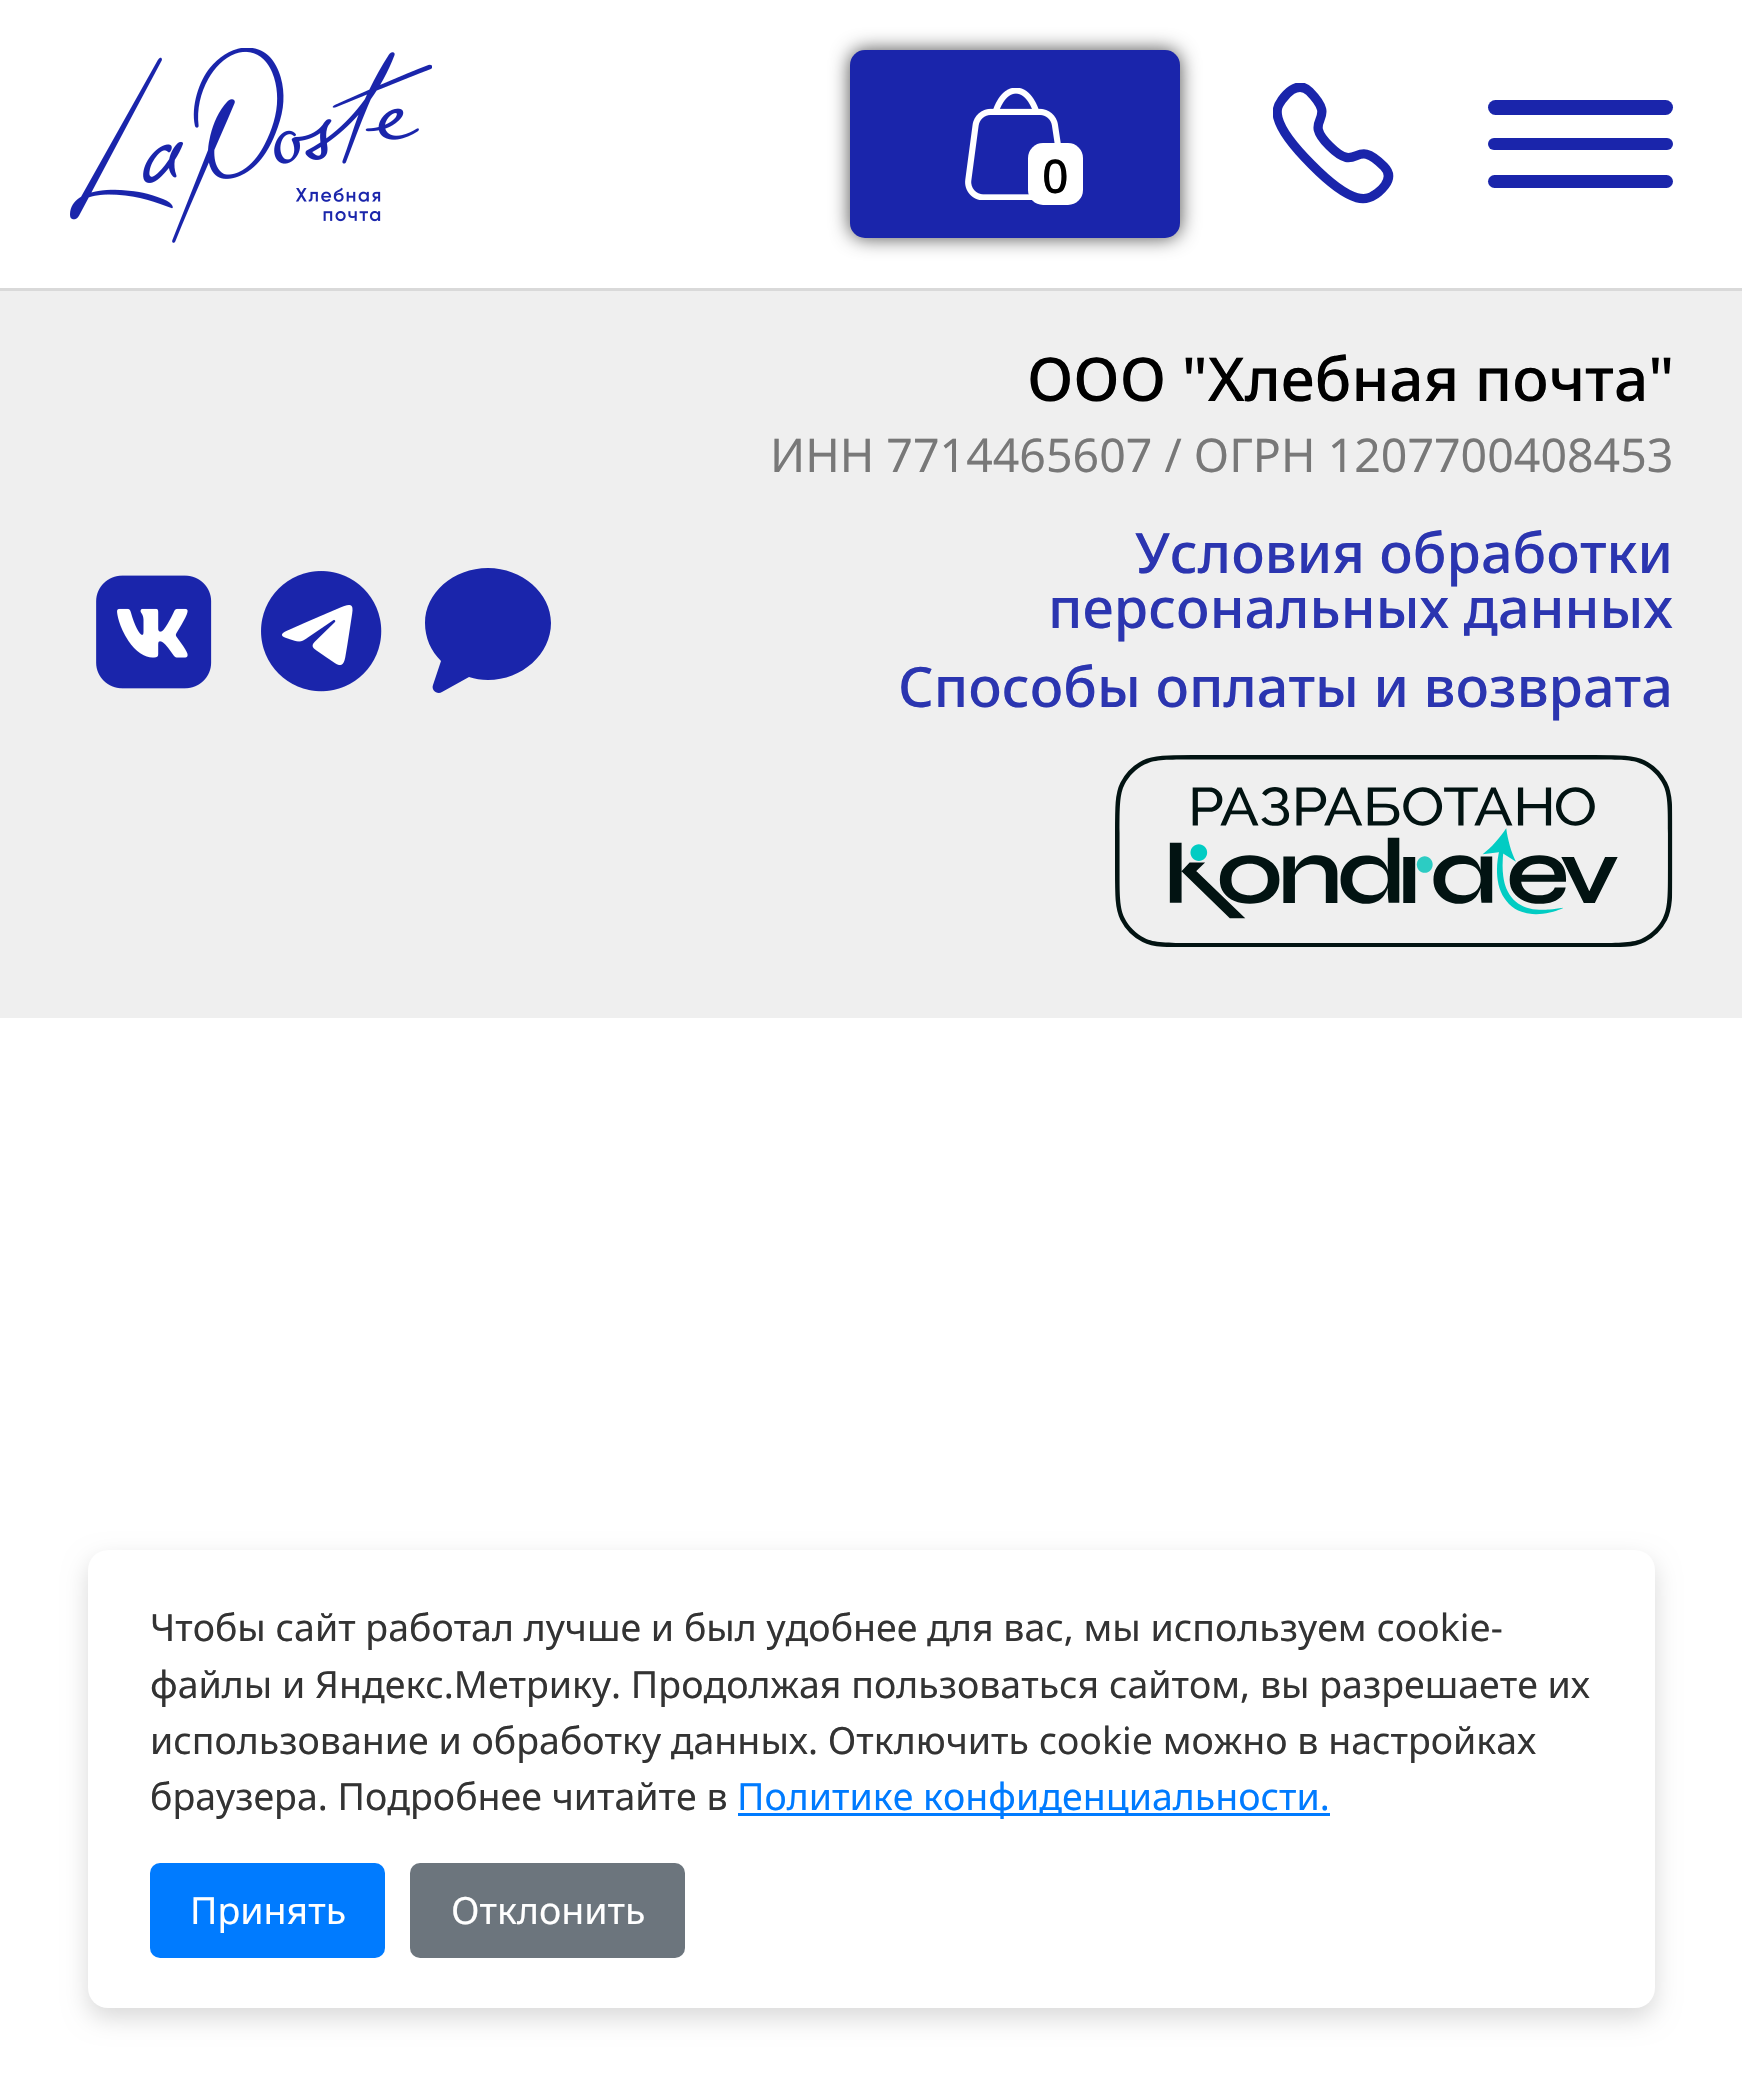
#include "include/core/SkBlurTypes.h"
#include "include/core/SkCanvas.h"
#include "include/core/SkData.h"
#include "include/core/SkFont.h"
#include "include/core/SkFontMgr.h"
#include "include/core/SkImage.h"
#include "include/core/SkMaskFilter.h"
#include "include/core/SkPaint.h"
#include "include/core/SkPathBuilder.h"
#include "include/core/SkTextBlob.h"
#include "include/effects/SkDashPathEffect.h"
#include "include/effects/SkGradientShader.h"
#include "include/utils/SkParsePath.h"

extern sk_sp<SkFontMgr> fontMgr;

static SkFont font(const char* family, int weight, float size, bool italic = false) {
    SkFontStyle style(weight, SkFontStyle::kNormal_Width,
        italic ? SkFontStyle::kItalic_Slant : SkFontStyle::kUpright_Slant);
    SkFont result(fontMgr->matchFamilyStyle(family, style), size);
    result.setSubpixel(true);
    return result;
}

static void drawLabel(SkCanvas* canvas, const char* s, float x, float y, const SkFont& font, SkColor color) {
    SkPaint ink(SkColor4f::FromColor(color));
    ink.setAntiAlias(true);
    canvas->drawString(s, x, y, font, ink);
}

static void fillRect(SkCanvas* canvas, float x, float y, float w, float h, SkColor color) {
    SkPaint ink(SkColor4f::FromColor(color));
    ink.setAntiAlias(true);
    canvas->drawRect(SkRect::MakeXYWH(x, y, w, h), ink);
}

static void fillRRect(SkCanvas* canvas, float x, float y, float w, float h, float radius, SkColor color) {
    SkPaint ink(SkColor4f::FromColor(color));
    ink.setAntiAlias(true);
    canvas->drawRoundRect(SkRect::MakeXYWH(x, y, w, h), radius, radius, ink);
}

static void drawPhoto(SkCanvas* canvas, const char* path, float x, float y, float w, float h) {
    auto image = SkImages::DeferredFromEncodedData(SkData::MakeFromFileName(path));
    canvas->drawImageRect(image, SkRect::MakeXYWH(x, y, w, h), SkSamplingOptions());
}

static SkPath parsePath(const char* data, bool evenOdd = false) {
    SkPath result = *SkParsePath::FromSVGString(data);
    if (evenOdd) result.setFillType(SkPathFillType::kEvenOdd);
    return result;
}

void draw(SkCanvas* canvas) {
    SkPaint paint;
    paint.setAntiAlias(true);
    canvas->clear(0xFFFFFFFF);
    fillRect(canvas, 0, 288, 1742, 3, 0xFFD9D9D9);
    drawPhoto(canvas, "assets/img1.png", 70, 48, 362, 195);
    paint.setColor(0xB3000000);
    paint.setMaskFilter(SkMaskFilter::MakeBlur(kNormal_SkBlurStyle, 9.5f));
    canvas->drawRoundRect(SkRect::MakeXYWH(850, 50, 330, 188), 15, 15, paint);
    paint.setMaskFilter(nullptr);
    fillRRect(canvas, 850, 50, 330, 188, 15, 0xFF1A25AB);
    drawPhoto(canvas, "assets/img2.png", 965, 88, 96, 112);
    fillRRect(canvas, 1028, 143, 55, 62, 15, 0xFFFFFFFF);
    SkFont font1 = font("Noto Sans", 500, 46.5f);
    drawLabel(canvas, "0", 1042, 193, font1, 0xFF000000);
    canvas->save();
    canvas->clipRect(SkRect::MakeXYWH(1273, 83, 122, 122));
    paint.setStroke(true);
    paint.setStrokeWidth(9.3f);
    paint.setStrokeCap(SkPaint::kRound_Cap);
    paint.setColor(0xFF1A25AB);
    canvas->drawPath(parsePath("M1311.5 164.5C1356 209.5 1369 198.5 1375 194.5C1376 194 1397.5 180 1384 166.5C1353 135 1359.5 176 1329.5 146C1300 116.5 1340.5 123 1309.5 91.5C1296 78 1282 100 1281.5 100.5C1277 106.5 1266.5 119.5 1311.5 164.5Z"), paint);
    canvas->restore();
    fillRRect(canvas, 1488, 100, 185, 15, 7.5f, 0xFF1A25AB);
    fillRRect(canvas, 1488, 138, 185, 12, 6, 0xFF1A25AB);
    fillRRect(canvas, 1488, 175, 185, 13, 6.5f, 0xFF1A25AB);
    fillRect(canvas, 0, 291, 1742, 727, 0xFFEFEFEF);
    SkFont font2 = font("Noto Sans", 500, 60.5f);
    drawLabel(canvas, "ООО \"Хлебная почта\"", 1027, 401, font2, 0xFF000000);
    SkFont font3 = font("Noto Sans", 400, 46.5f);
    drawLabel(canvas, "ИНН 7714465607 / ОГРН 1207700408453", 770, 472, font3, 0xFF787878);
    drawPhoto(canvas, "assets/img3.png", 96, 575, 116, 114);
    drawPhoto(canvas, "assets/img4.png", 261, 571, 121, 121);
    paint.setStroke(false);
    canvas->drawPath(parsePath("M488 568C453 568 425 593 425 623C425 638 431 651 441 661L433 685C431 690 437 695 442 692L469 677C475 679 481 680 488 680C522 680 551 654 551 623C551 593 522 568 488 568Z"), paint);
    SkFont font4 = font("Noto Sans", 500, 55.75f);
    drawLabel(canvas, "Условия обработки", 1135, 573, font4, 0xFF2B35B0);
    drawLabel(canvas, "персональных данных", 1048, 628, font4, 0xFF2B35B0);
    drawLabel(canvas, "Способы оплаты и возврата", 898, 707, font4, 0xFF2B35B0);
    drawPhoto(canvas, "assets/img5.png", 1115, 755, 558, 192);
    paint.setColor(0x26000000);
    paint.setMaskFilter(SkMaskFilter::MakeBlur(kNormal_SkBlurStyle, 12.5f));
    canvas->drawRoundRect(SkRect::MakeXYWH(88, 1560, 1567, 458), 20, 20, paint);
    paint.setMaskFilter(nullptr);
    fillRRect(canvas, 88, 1550, 1567, 458, 20, 0xFFFFFFFF);
    SkFont font5 = font("Noto Sans", 400, 37.5f);
    drawLabel(canvas, "Чтобы сайт работал лучше и был удобнее для вас, мы используем cookie-", 150, 1641, font5, 0xFF333333);
    drawLabel(canvas, "файлы и Яндекс.Метрику. Продолжая пользоваться сайтом, вы разрешаете их", 150, 1698, font5, 0xFF333333);
    drawLabel(canvas, "использование и обработку данных. Отключить cookie можно в настройках", 150, 1754, font5, 0xFF333333);
    drawLabel(canvas, "браузера. Подробнее читайте в", 150, 1810, font5, 0xFF333333);
    fillRect(canvas, 738, 1813, 592, 3, 0xFF007BFF);
    drawLabel(canvas, "Политике конфиденциальности.", 737, 1810, font5, 0xFF007BFF);
    fillRRect(canvas, 150, 1863, 235, 95, 10, 0xFF007BFF);
    drawLabel(canvas, "Принять", 190, 1924, font5, 0xFFFFFFFF);
    fillRRect(canvas, 410, 1863, 275, 95, 10, 0xFF6C757D);
    drawLabel(canvas, "Отклонить", 451, 1924, font5, 0xFFFFFFFF);
}
